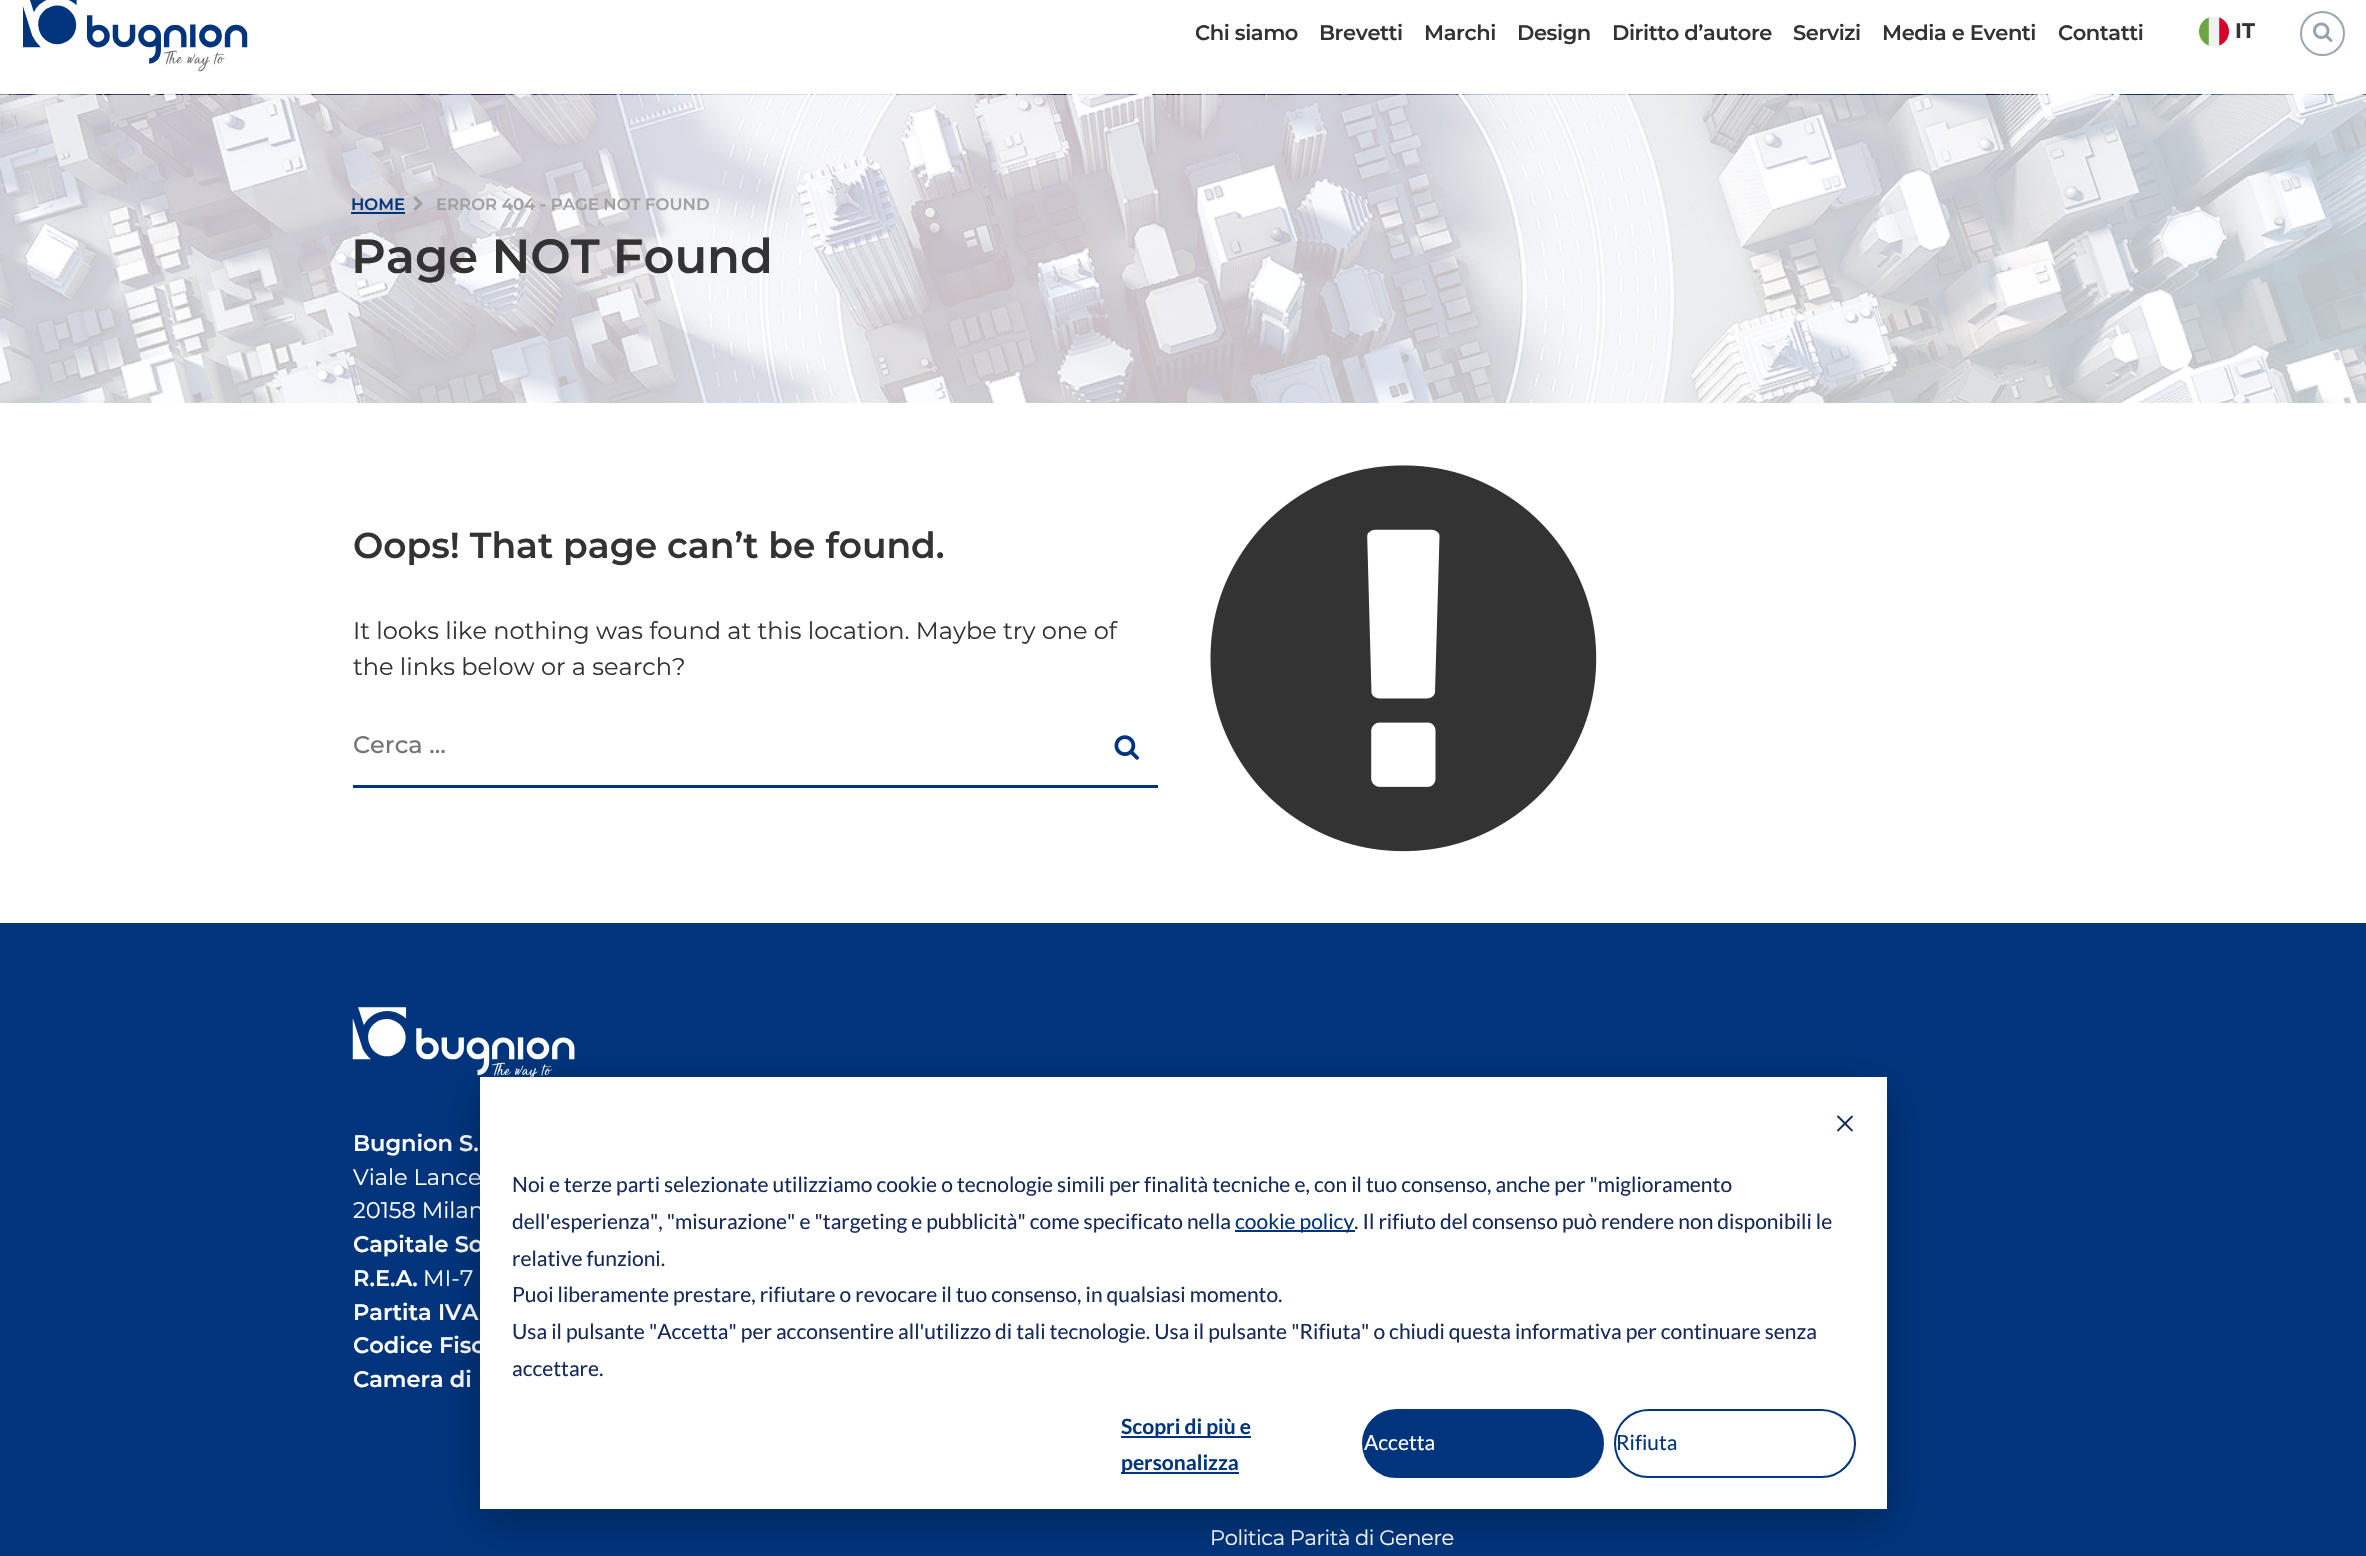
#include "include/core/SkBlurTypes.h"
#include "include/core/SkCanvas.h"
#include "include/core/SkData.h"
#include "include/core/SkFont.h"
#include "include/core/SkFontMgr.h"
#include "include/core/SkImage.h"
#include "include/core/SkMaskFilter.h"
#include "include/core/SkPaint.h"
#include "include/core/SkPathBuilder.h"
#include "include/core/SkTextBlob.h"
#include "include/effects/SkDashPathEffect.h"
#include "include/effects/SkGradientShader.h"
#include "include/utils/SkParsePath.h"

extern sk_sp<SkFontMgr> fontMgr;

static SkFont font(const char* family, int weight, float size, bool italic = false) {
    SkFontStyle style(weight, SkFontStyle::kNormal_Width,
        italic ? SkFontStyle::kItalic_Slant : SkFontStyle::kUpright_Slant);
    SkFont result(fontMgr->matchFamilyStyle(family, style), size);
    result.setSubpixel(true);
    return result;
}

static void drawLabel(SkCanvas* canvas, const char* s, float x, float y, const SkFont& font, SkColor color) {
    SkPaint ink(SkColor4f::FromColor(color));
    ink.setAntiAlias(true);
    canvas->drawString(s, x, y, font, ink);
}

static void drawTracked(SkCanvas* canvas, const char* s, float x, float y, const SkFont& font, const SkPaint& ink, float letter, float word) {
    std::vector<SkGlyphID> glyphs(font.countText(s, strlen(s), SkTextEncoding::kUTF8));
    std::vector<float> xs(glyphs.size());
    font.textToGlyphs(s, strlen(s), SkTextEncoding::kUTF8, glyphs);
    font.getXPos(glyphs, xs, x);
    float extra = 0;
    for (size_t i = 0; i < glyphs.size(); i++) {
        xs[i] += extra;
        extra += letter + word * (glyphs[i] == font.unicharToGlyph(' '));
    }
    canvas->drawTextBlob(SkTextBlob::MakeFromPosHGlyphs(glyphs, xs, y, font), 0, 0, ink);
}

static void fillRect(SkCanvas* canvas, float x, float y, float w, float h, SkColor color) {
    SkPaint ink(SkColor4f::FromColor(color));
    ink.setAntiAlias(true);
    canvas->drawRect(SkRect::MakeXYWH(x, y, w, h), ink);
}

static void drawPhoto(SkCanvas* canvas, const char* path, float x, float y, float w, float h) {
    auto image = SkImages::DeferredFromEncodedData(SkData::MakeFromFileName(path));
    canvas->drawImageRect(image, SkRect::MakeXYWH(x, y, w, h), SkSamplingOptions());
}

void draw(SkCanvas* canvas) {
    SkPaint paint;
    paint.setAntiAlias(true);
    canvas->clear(0xFFFFFFFF);
    drawPhoto(canvas, "assets/img1.png", 23, 0, 225, 72);
    SkFont font1 = font("Montserrat", 600, 21);
    paint.setColor(0xFF333333);
    drawTracked(canvas, "Chi siamo", 1195, 40, font1, paint, -0.4f, 0);
    drawTracked(canvas, "Brevetti", 1319, 40, font1, paint, -0.4f, 0);
    drawTracked(canvas, "Marchi", 1424, 40, font1, paint, -0.4f, 0);
    drawTracked(canvas, "Design", 1517, 40, font1, paint, -0.4f, 0);
    drawTracked(canvas, "Diritto d’autore", 1612, 40, font1, paint, -0.4f, 0);
    drawTracked(canvas, "Servizi", 1793, 40, font1, paint, -0.4f, 0);
    drawTracked(canvas, "Media e Eventi", 1882, 40, font1, paint, -0.4f, 0);
    drawTracked(canvas, "Contatti", 2058, 40, font1, paint, -0.4f, 0);
    drawPhoto(canvas, "assets/img2.png", 2199, 17, 30, 30);
    SkFont font2 = font("Montserrat", 700, 21);
    drawLabel(canvas, "IT", 2235, 38, font2, 0xFF333333);
    paint.setStroke(true);
    paint.setStrokeWidth(2);
    paint.setColor(0xFF9CA6B2);
    canvas->drawCircle(2322.5f, 33.5f, 21.5f, paint);
    drawPhoto(canvas, "assets/img3.png", 2313, 22, 20, 20);
    drawPhoto(canvas, "assets/img4.png", 0, 94, 2366, 309);
    SkFont font3 = font("Montserrat", 600, 16.5f);
    drawLabel(canvas, "HOME", 351, 210, font3, 0xFF00357D);
    fillRect(canvas, 351, 212, 54, 2, 0xFF00357D);
    drawPhoto(canvas, "assets/img5.png", 413, 196, 10, 15);
    drawLabel(canvas, "ERROR 404 - PAGE NOT FOUND", 436, 210, font3, 0xFFA1A1A1);
    SkFont font4 = font("Montserrat", 600, 48);
    drawLabel(canvas, "Page NOT Found", 351, 273, font4, 0xFF333333);
    SkFont font5 = font("Montserrat", 600, 36);
    drawLabel(canvas, "Oops! That page can’t be found.", 353, 558, font5, 0xFF333333);
    SkFont font6 = font("Montserrat", 400, 24);
    drawLabel(canvas, "It looks like nothing was found at this location. Maybe try one of", 353, 639, font6, 0xFF333333);
    drawLabel(canvas, "the links below or a search?", 353, 675, font6, 0xFF333333);
    fillRect(canvas, 353, 785, 805, 3, 0xFF00357D);
    SkFont font7 = font("Montserrat", 500, 24);
    drawLabel(canvas, "Cerca …", 353, 753, font7, 0xFF757575);
    drawPhoto(canvas, "assets/img6.png", 1114, 735, 25, 25);
    drawPhoto(canvas, "assets/img7.png", 1210, 465, 387, 387);
    fillRect(canvas, 0, 923, 2366, 633, 0xFF00357D);
    drawPhoto(canvas, "assets/img8.png", 352, 1007, 223, 70);
    SkFont font8 = font("Montserrat", 600, 22.5f);
    drawLabel(canvas, "Bugnion S.", 353, 1151, font8, 0xFFFFFFFF);
    SkFont font9 = font("Montserrat", 400, 22.5f);
    drawLabel(canvas, "Viale Lance", 353, 1185, font9, 0xFFFFFFFF);
    drawLabel(canvas, "20158 Milan", 353, 1218, font9, 0xFFFFFFFF);
    drawLabel(canvas, "Capitale So", 353, 1252, font8, 0xFFFFFFFF);
    drawLabel(canvas, "R.E.A.", 353, 1286, font8, 0xFFFFFFFF);
    drawLabel(canvas, "MI-7", 423, 1286, font9, 0xFFFFFFFF);
    drawLabel(canvas, "Partita IVA", 353, 1320, font8, 0xFFFFFFFF);
    drawLabel(canvas, "Codice Fisc", 353, 1353, font8, 0xFFFFFFFF);
    drawLabel(canvas, "Camera di", 353, 1387, font8, 0xFFFFFFFF);
    SkFont font10 = font("Montserrat", 400, 21);
    paint.setStroke(false);
    paint.setColor(0xFFFFFFFF);
    drawTracked(canvas, "Politica Parità di Genere", 1210, 1545, font10, paint, -0.4f, 0);
    paint.setColor(0x47000000);
    paint.setMaskFilter(SkMaskFilter::MakeBlur(kNormal_SkBlurStyle, 21));
    canvas->drawRect(SkRect::MakeXYWH(480, 1089, 1407, 432), paint);
    paint.setMaskFilter(nullptr);
    fillRect(canvas, 480, 1077, 1407, 432, 0xFFFFFFFF);
    drawPhoto(canvas, "assets/img9.png", 1837, 1115, 16, 17);
    SkFont font11 = font("Lato", 400, 21);
    drawLabel(canvas, "Noi e terze parti selezionate utilizziamo cookie o tecnologie simili per finalità tecniche e, con il tuo consenso, anche per \"miglioramento", 512, 1192, font11, 0xFF15295A);
    drawLabel(canvas, "dell'esperienza\", \"misurazione\" e \"targeting e pubblicità\" come specificato nella", 512, 1229, font11, 0xFF15295A);
    fillRect(canvas, 1235, 1230, 120, 2, 0xFF00357D);
    drawLabel(canvas, "cookie policy", 1235, 1229, font11, 0xFF00357D);
    drawLabel(canvas, ". Il rifiuto del consenso può rendere non disponibili le", 1354, 1229, font11, 0xFF15295A);
    drawLabel(canvas, "relative funzioni.", 512, 1266, font11, 0xFF15295A);
    drawLabel(canvas, "Puoi liberamente prestare, rifiutare o revocare il tuo consenso, in qualsiasi momento.", 512, 1302, font11, 0xFF15295A);
    drawLabel(canvas, "Usa il pulsante \"Accetta\" per acconsentire all'utilizzo di tali tecnologie. Usa il pulsante \"Rifiuta\" o chiudi questa informativa per continuare senza", 512, 1339, font11, 0xFF15295A);
    drawLabel(canvas, "accettare.", 512, 1376, font11, 0xFF15295A);
    fillRect(canvas, 1121, 1436, 130, 2, 0xFF00357D);
    SkFont font12 = font("Lato", 700, 21);
    drawLabel(canvas, "Scopri di più e", 1121, 1434, font12, 0xFF00357D);
    fillRect(canvas, 1121, 1472, 118, 2, 0xFF00357D);
    drawLabel(canvas, "personalizza", 1121, 1470, font12, 0xFF00357D);
    paint.setColor(0xFF00357D);
    canvas->drawRoundRect(SkRect::MakeXYWH(1363, 1410, 240, 67), 33.5f, 33.5f, paint);
    paint.setStroke(true);
    canvas->drawRoundRect(SkRect::MakeXYWH(1363, 1410, 240, 67), 33.5f, 33.5f, paint);
    drawLabel(canvas, "Accetta", 1364, 1450, font11, 0xFFFFFFFF);
    canvas->drawRoundRect(SkRect::MakeXYWH(1615, 1410, 240, 67), 33.5f, 33.5f, paint);
    drawLabel(canvas, "Rifiuta", 1616, 1450, font11, 0xFF00357D);
}
